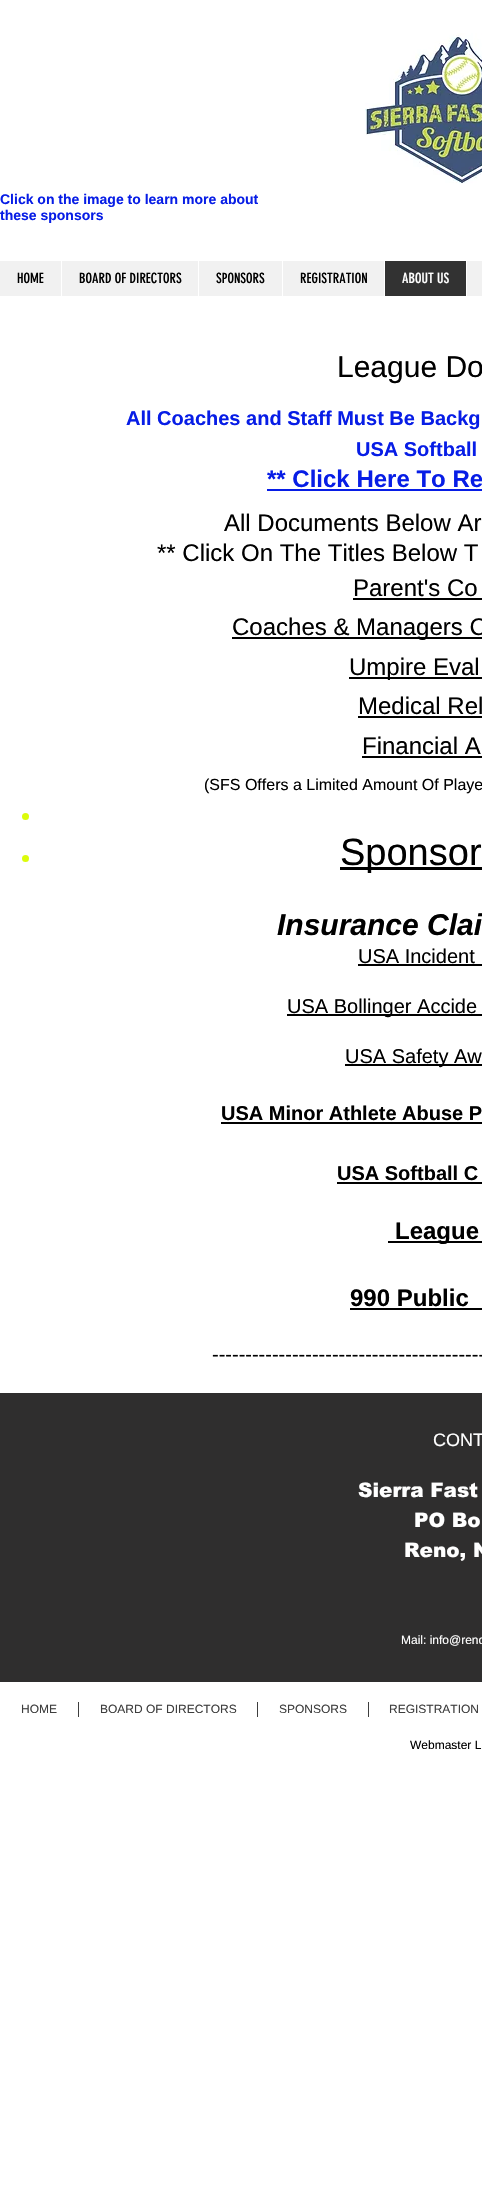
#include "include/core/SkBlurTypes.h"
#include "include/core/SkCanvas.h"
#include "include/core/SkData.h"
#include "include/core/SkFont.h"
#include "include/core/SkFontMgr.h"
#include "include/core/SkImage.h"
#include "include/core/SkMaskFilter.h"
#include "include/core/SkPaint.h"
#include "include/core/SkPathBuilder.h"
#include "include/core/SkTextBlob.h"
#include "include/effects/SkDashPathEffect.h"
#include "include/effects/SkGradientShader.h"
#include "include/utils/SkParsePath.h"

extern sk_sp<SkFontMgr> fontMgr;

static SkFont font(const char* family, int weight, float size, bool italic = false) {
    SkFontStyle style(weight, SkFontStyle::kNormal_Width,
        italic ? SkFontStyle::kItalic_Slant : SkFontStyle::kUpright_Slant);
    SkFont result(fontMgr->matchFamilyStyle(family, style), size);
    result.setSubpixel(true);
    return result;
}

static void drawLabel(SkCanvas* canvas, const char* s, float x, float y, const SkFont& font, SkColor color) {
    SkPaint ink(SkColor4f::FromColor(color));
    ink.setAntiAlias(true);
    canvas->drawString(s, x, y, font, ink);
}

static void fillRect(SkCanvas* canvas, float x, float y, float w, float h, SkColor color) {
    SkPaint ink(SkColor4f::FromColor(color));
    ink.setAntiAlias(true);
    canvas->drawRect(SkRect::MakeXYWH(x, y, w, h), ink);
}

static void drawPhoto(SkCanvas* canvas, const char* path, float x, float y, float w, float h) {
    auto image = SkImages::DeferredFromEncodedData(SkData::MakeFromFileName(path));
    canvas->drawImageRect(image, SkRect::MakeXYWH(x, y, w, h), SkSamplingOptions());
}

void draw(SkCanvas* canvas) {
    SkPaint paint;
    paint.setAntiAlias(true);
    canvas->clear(0xFFFFFFFF);
    drawPhoto(canvas, "assets/img1.png", 365, 33, 117, 151);
    SkFont font1 = font("Liberation Sans", 700, 14);
    drawLabel(canvas, "Click on the image to learn more about", 0, 204, font1, 0xFF071DE6);
    drawLabel(canvas, "these sponsors", 0, 220, font1, 0xFF071DE6);
    fillRect(canvas, 0, 261, 482, 35, 0xFFF1F1F1);
    SkFont font2 = font("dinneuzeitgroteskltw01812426", 400, 14);
    drawLabel(canvas, "HOME", 17, 283, font2, 0xFF000000);
    fillRect(canvas, 61, 261, 1, 35, 0xFFFFFFFF);
    drawLabel(canvas, "BOARD OF DIRECTORS", 79, 283, font2, 0xFF000000);
    fillRect(canvas, 198, 261, 1, 35, 0xFFFFFFFF);
    drawLabel(canvas, "SPONSORS", 216, 283, font2, 0xFF000000);
    fillRect(canvas, 282, 261, 1, 35, 0xFFFFFFFF);
    drawLabel(canvas, "REGISTRATION", 300, 283, font2, 0xFF000000);
    fillRect(canvas, 385, 261, 81, 35, 0xFF323232);
    fillRect(canvas, 384, 261, 1, 35, 0xFFFFFFFF);
    drawLabel(canvas, "ABOUT US", 402, 283, font2, 0xFFFFFFFF);
    fillRect(canvas, 466, 261, 1, 35, 0xFFFFFFFF);
    SkFont font3 = font("Liberation Sans", 400, 30);
    drawLabel(canvas, "League Do", 337, 377, font3, 0xFF000000);
    SkFont font4 = font("Liberation Sans", 700, 20);
    drawLabel(canvas, "All Coaches and Staff Must Be Backg", 126, 425, font4, 0xFF071DE6);
    drawLabel(canvas, "USA Softball", 356, 456, font4, 0xFF071DE6);
    SkFont font5 = font("Liberation Sans", 700, 24);
    drawLabel(canvas, "** Click Here To Re", 267, 487, font5, 0xFF071DE6);
    fillRect(canvas, 267, 489, 215, 2, 0xFF071DE6);
    SkFont font6 = font("Liberation Sans", 400, 24);
    drawLabel(canvas, "All Documents Below Ar", 224, 531, font6, 0xFF000000);
    drawLabel(canvas, "** Click On The Titles Below T", 157, 561, font6, 0xFF000000);
    drawLabel(canvas, "Parent's Co", 353, 596, font6, 0xFF000000);
    fillRect(canvas, 353, 598, 129, 2, 0xFF000000);
    fillRect(canvas, 232, 637, 250, 2, 0xFF000000);
    drawLabel(canvas, "Coaches & Managers C", 232, 635, font6, 0xFF000000);
    fillRect(canvas, 349, 677, 133, 2, 0xFF000000);
    drawLabel(canvas, "Umpire Eval", 349, 675, font6, 0xFF000000);
    drawLabel(canvas, "Medical Rel", 358, 714, font6, 0xFF000000);
    fillRect(canvas, 358, 716, 124, 2, 0xFF000000);
    drawLabel(canvas, "Financial A", 362, 754, font6, 0xFF000000);
    fillRect(canvas, 362, 756, 120, 2, 0xFF000000);
    SkFont font7 = font("Liberation Sans", 400, 16);
    drawLabel(canvas, "(SFS Offers a Limited Amount Of Playe", 204, 790, font7, 0xFF000000);
    paint.setColor(0xFFDCFC0A);
    canvas->drawCircle(25.5f, 816.5f, 3.5f, paint);
    canvas->drawCircle(25.5f, 858.5f, 3.5f, paint);
    fillRect(canvas, 340, 867, 142, 3, 0xFF000000);
    SkFont font8 = font("Liberation Sans", 400, 38);
    drawLabel(canvas, "Sponsor", 340, 865, font8, 0xFF000000);
    SkFont font9 = font("Liberation Sans", 700, 30, true);
    drawLabel(canvas, "Insurance Clai", 277, 935, font9, 0xFF000000);
    SkFont font10 = font("Liberation Sans", 400, 20);
    drawLabel(canvas, "USA Incident", 358, 963, font10, 0xFF000000);
    fillRect(canvas, 358, 964, 124, 2, 0xFF000000);
    fillRect(canvas, 287, 1014, 195, 2, 0xFF000000);
    drawLabel(canvas, "USA Bollinger Accide", 287, 1013, font10, 0xFF000000);
    fillRect(canvas, 345, 1064, 137, 2, 0xFF000000);
    drawLabel(canvas, "USA Safety Aw", 345, 1063, font10, 0xFF000000);
    drawLabel(canvas, "USA Minor Athlete Abuse P", 221, 1120, font4, 0xFF000000);
    fillRect(canvas, 221, 1122, 261, 2, 0xFF000000);
    drawLabel(canvas, "USA Softball C", 337, 1180, font4, 0xFF000000);
    fillRect(canvas, 337, 1182, 145, 2, 0xFF000000);
    fillRect(canvas, 388, 1241, 94, 2, 0xFF000000);
    drawLabel(canvas, "League", 395, 1239, font5, 0xFF000000);
    drawLabel(canvas, "990 Public", 350, 1306, font5, 0xFF000000);
    fillRect(canvas, 350, 1308, 132, 2, 0xFF000000);
    drawLabel(canvas, "-----------------------------------------", 212, 1361, font10, 0xFF000000);
    fillRect(canvas, 0, 1393, 482, 289, 0xFF2F2E2E);
    SkFont font11 = font("Liberation Sans", 400, 18);
    drawLabel(canvas, "CONT", 433, 1446, font11, 0xFFFFFFFF);
    SkFont font12 = font("arial", 900, 20);
    drawLabel(canvas, "Sierra Fast", 358, 1497, font12, 0xFFFFFFFF);
    drawLabel(canvas, "PO Bo", 414, 1527, font12, 0xFFFFFFFF);
    drawLabel(canvas, "Reno, N", 404, 1557, font12, 0xFFFFFFFF);
    SkFont font13 = font("Liberation Sans", 400, 12);
    drawLabel(canvas, "Mail: info@reno", 401, 1644, font13, 0xFFFFFFFF);
    drawLabel(canvas, "HOME", 21, 1713, font13, 0xFF3E3E3E);
    fillRect(canvas, 78, 1702, 1, 15, 0xFF3E3E3E);
    drawLabel(canvas, "BOARD OF DIRECTORS", 100, 1713, font13, 0xFF3E3E3E);
    fillRect(canvas, 257, 1702, 1, 15, 0xFF3E3E3E);
    drawLabel(canvas, "SPONSORS", 279, 1713, font13, 0xFF3E3E3E);
    fillRect(canvas, 368, 1702, 1, 15, 0xFF3E3E3E);
    drawLabel(canvas, "REGISTRATION", 389, 1713, font13, 0xFF3E3E3E);
    drawLabel(canvas, "Webmaster L", 410, 1749, font13, 0xFF000000);
}
